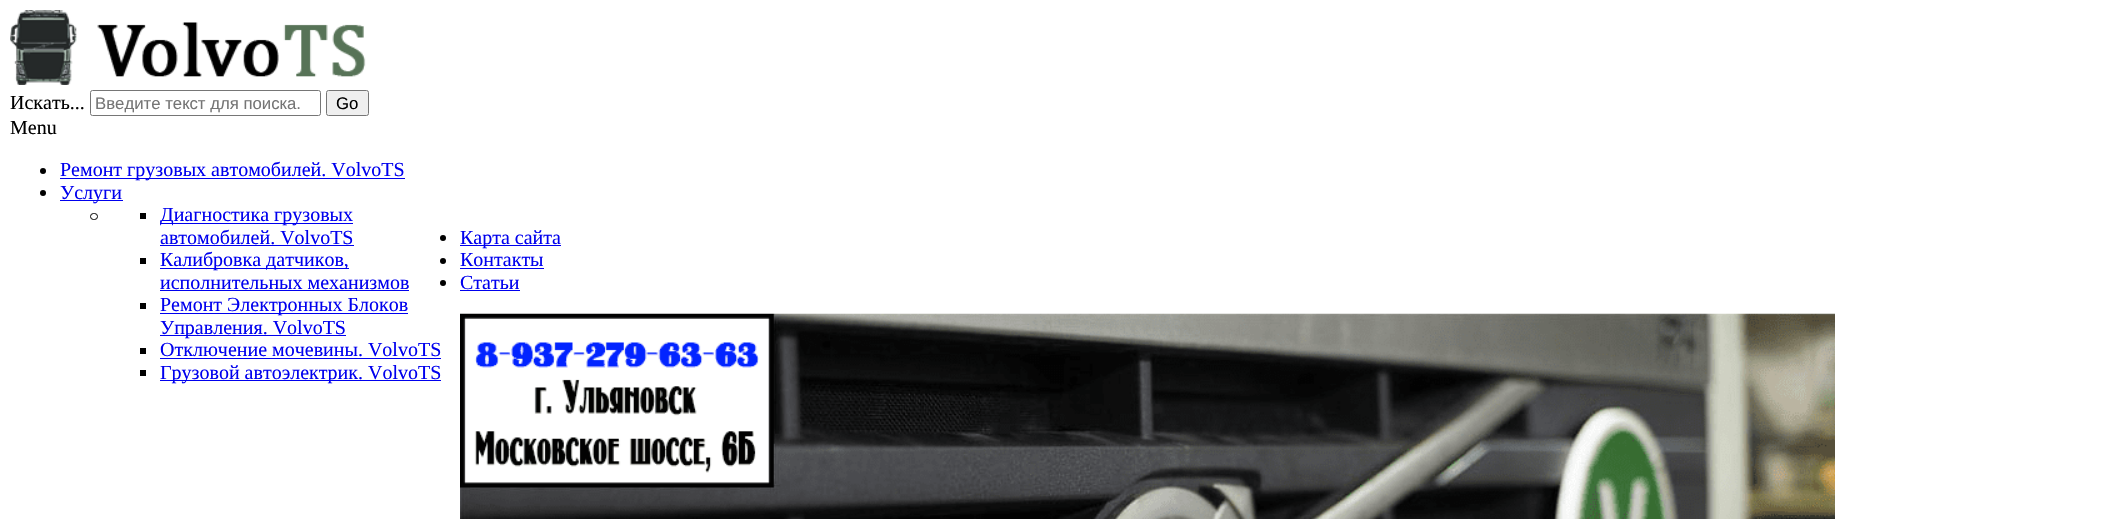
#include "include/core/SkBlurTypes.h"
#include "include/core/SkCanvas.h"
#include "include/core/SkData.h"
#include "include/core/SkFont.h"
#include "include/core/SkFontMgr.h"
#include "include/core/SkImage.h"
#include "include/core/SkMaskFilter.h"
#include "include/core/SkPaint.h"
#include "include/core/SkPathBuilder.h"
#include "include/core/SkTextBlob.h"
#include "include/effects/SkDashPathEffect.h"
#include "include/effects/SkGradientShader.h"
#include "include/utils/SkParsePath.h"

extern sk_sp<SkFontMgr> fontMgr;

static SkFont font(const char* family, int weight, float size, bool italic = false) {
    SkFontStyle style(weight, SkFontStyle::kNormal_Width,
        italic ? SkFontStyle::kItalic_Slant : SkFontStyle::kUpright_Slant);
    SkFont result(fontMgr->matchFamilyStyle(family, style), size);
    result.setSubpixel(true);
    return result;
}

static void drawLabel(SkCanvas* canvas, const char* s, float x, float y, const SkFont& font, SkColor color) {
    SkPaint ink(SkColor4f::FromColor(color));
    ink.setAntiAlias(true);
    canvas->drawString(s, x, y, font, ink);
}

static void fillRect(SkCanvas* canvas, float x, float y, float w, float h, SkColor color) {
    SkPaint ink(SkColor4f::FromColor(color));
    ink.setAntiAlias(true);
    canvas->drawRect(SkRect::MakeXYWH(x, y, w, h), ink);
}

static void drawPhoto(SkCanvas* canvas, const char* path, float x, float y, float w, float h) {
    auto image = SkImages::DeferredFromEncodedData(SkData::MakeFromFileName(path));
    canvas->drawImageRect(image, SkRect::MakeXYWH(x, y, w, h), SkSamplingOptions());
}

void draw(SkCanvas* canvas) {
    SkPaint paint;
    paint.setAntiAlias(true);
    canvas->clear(0xFFFFFFFF);
    drawPhoto(canvas, "assets/img1.png", 10, 10, 356, 75);
    SkFont font1 = font("Liberation Serif", 400, 20);
    drawLabel(canvas, "Искать...", 10, 109, font1, 0xFF000000);
    paint.setStroke(true);
    paint.setStrokeWidth(1);
    paint.setColor(0xFF767676);
    canvas->drawRoundRect(SkRect::MakeXYWH(90.5f, 90.5f, 230, 25), 2, 2, paint);
    SkFont font2 = font("Liberation Sans", 400, 16.75f);
    drawLabel(canvas, "Введите текст для поиска.", 95, 109, font2, 0xFF757575);
    paint.setStroke(false);
    paint.setColor(0xFFEFEFEF);
    canvas->drawRoundRect(SkRect::MakeXYWH(326.5f, 90.5f, 42, 25), 2, 2, paint);
    paint.setStroke(true);
    paint.setColor(0xFF767676);
    canvas->drawRoundRect(SkRect::MakeXYWH(326.5f, 90.5f, 42, 25), 2, 2, paint);
    drawLabel(canvas, "Go", 336, 109, font2, 0xFF000000);
    drawLabel(canvas, "Menu", 10, 134, font1, 0xFF000000);
    paint.setStroke(false);
    paint.setColor(0xFF000000);
    canvas->drawCircle(43, 171, 3, paint);
    fillRect(canvas, 60, 178, 345, 1, 0xFF0000EE);
    drawLabel(canvas, "Ремонт грузовых автомобилей. VolvoTS", 60, 176, font1, 0xFF0000EE);
    canvas->drawCircle(43, 193, 3, paint);
    fillRect(canvas, 60, 200, 63, 1, 0xFF0000EE);
    drawLabel(canvas, "Услуги", 60, 199, font1, 0xFF0000EE);
    paint.setStroke(true);
    canvas->drawRoundRect(SkRect::MakeXYWH(90.5f, 213.5f, 7, 6), 3, 3, paint);
    fillRect(canvas, 140, 213, 6, 6, 0xFF000000);
    fillRect(canvas, 160, 223, 193, 1, 0xFF0000EE);
    drawLabel(canvas, "Диагностика грузовых", 160, 221, font1, 0xFF0000EE);
    drawLabel(canvas, "автомобилей. VolvoTS", 160, 244, font1, 0xFF0000EE);
    fillRect(canvas, 160, 245, 194, 1, 0xFF0000EE);
    fillRect(canvas, 140, 258, 6, 6, 0xFF000000);
    fillRect(canvas, 160, 268, 189, 1, 0xFF0000EE);
    drawLabel(canvas, "Калибровка датчиков,", 160, 266, font1, 0xFF0000EE);
    drawLabel(canvas, "исполнительных механизмов", 160, 289, font1, 0xFF0000EE);
    fillRect(canvas, 160, 290, 249, 1, 0xFF0000EE);
    fillRect(canvas, 140, 303, 6, 6, 0xFF000000);
    fillRect(canvas, 160, 313, 248, 1, 0xFF0000EE);
    drawLabel(canvas, "Ремонт Электронных Блоков", 160, 311, font1, 0xFF0000EE);
    fillRect(canvas, 160, 335, 186, 1, 0xFF0000EE);
    drawLabel(canvas, "Управления. VolvoTS", 160, 334, font1, 0xFF0000EE);
    fillRect(canvas, 140, 348, 6, 6, 0xFF000000);
    drawLabel(canvas, "Отключение мочевины. VolvoTS", 160, 356, font1, 0xFF0000EE);
    fillRect(canvas, 160, 358, 281, 1, 0xFF0000EE);
    fillRect(canvas, 140, 370, 6, 6, 0xFF000000);
    fillRect(canvas, 160, 380, 281, 1, 0xFF0000EE);
    drawLabel(canvas, "Грузовой автоэлектрик. VolvoTS", 160, 379, font1, 0xFF0000EE);
    paint.setStroke(false);
    canvas->drawCircle(443, 238, 3, paint);
    fillRect(canvas, 460, 245, 101, 1, 0xFF0000EE);
    drawLabel(canvas, "Карта сайта", 460, 244, font1, 0xFF0000EE);
    canvas->drawCircle(443, 261, 3, paint);
    drawLabel(canvas, "Контакты", 460, 266, font1, 0xFF0000EE);
    fillRect(canvas, 460, 268, 84, 1, 0xFF0000EE);
    canvas->drawCircle(443, 283, 3, paint);
    drawLabel(canvas, "Статьи", 460, 289, font1, 0xFF0000EE);
    fillRect(canvas, 460, 290, 60, 1, 0xFF0000EE);
    drawPhoto(canvas, "assets/img2.png", 460, 313, 1375, 206);
}
